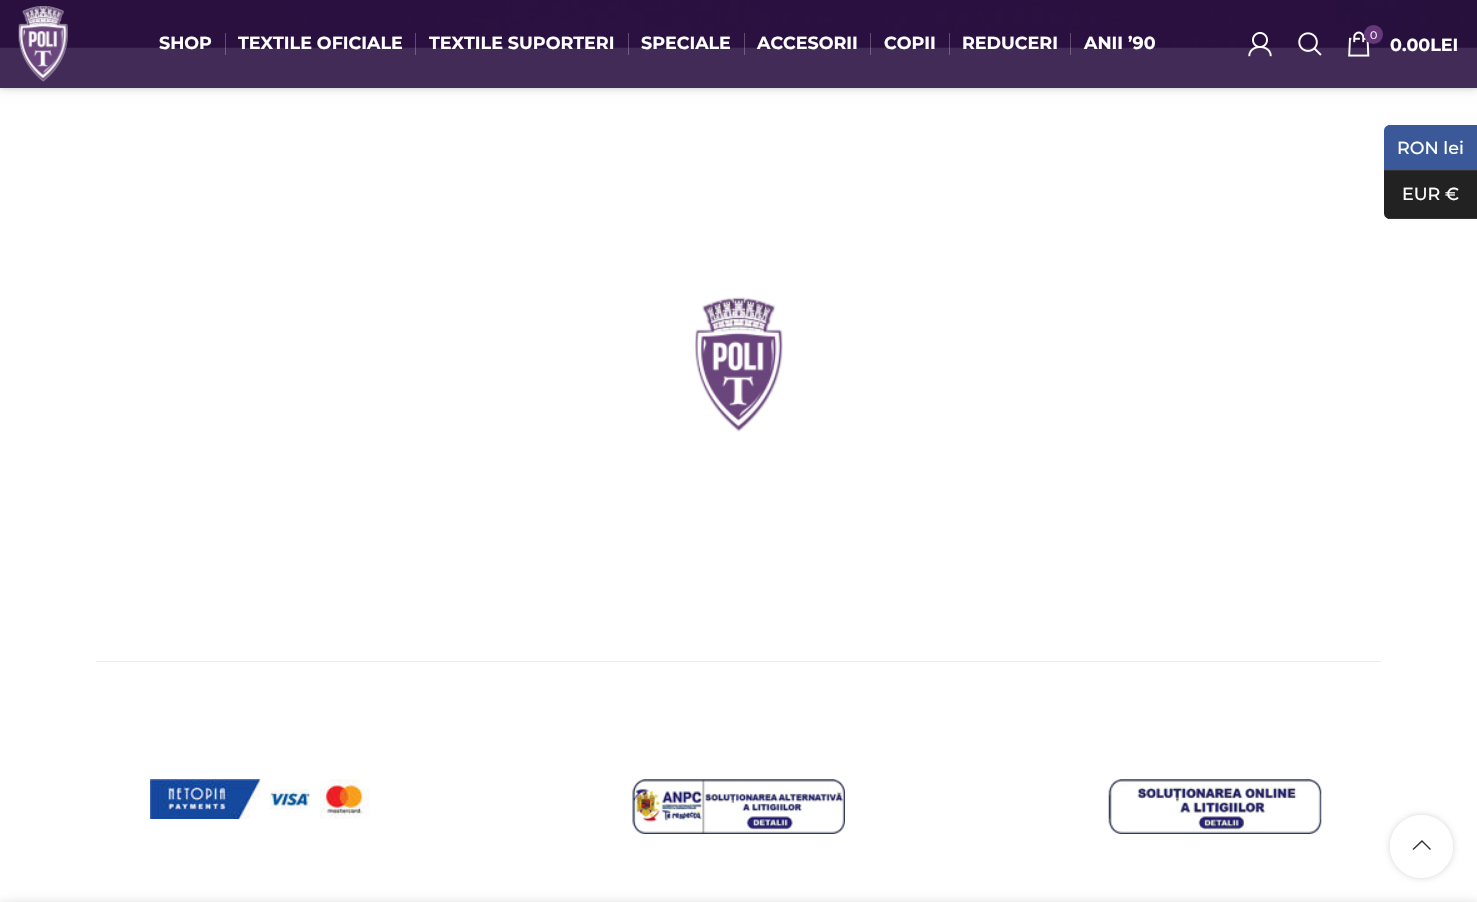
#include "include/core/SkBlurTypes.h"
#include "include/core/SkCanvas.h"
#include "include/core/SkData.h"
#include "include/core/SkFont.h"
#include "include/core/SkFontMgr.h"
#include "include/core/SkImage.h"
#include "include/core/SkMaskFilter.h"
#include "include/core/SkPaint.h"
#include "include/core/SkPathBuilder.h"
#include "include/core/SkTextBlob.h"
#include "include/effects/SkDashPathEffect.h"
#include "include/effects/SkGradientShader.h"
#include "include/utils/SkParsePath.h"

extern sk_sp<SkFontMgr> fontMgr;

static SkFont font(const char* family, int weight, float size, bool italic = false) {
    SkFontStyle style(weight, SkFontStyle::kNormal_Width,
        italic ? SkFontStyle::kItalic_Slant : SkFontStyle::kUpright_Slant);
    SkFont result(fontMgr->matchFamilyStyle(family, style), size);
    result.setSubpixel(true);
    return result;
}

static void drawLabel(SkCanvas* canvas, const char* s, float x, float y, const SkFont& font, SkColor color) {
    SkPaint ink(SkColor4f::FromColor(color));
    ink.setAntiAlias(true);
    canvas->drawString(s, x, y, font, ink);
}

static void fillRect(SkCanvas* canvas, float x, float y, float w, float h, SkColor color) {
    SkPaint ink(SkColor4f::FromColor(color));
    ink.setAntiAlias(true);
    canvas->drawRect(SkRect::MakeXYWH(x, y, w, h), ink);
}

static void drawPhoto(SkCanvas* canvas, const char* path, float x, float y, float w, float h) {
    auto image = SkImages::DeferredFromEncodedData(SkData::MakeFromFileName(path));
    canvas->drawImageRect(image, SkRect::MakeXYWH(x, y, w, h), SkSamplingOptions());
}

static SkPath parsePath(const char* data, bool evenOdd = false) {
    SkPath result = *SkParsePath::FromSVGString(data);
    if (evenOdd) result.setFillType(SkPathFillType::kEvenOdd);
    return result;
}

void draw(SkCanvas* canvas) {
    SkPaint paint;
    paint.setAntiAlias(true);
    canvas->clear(0xFFFFFFFF);
    drawPhoto(canvas, "assets/img1.png", 0, 0, 1477, 48);
    canvas->save();
    canvas->clipPath(parsePath("M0 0H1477V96H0ZM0 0H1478V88H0Z", true), true);
    paint.setColor(0x1A000000);
    paint.setMaskFilter(SkMaskFilter::MakeBlur(kNormal_SkBlurStyle, 2));
    canvas->drawRect(SkRect::MakeXYWH(0, 1, 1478, 88), paint);
    paint.setMaskFilter(nullptr);
    canvas->restore();
    canvas->save();
    canvas->clipPath(parsePath("M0 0H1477V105H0ZM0 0H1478V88H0Z", true), true);
    paint.setMaskFilter(SkMaskFilter::MakeBlur(kNormal_SkBlurStyle, 5));
    canvas->drawRect(SkRect::MakeXYWH(0, 1, 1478, 88), paint);
    paint.setMaskFilter(nullptr);
    canvas->restore();
    fillRect(canvas, 0, 0, 1477, 88, 0xE32B1141);
    drawPhoto(canvas, "assets/img2.png", 18, 6, 50, 76);
    SkFont font1 = font("Montserrat", 700, 17.5f);
    drawLabel(canvas, "SHOP", 159, 49, font1, 0xFFFFFFFF);
    fillRect(canvas, 225, 33, 1, 22, 0x40FFFFFF);
    drawLabel(canvas, "TEXTILE OFICIALE", 238, 49, font1, 0xFFFFFFFF);
    fillRect(canvas, 415, 33, 1, 22, 0x40FFFFFF);
    drawLabel(canvas, "TEXTILE SUPORTERI", 429, 49, font1, 0xFFFFFFFF);
    fillRect(canvas, 628, 33, 1, 22, 0x40FFFFFF);
    drawLabel(canvas, "SPECIALE", 641, 49, font1, 0xFFFFFFFF);
    fillRect(canvas, 744, 33, 1, 22, 0x40FFFFFF);
    drawLabel(canvas, "ACCESORII", 757, 49, font1, 0xFFFFFFFF);
    fillRect(canvas, 870, 33, 1, 22, 0x40FFFFFF);
    drawLabel(canvas, "COPII", 884, 49, font1, 0xFFFFFFFF);
    fillRect(canvas, 949, 33, 1, 22, 0x40FFFFFF);
    drawLabel(canvas, "REDUCERI", 962, 49, font1, 0xFFFFFFFF);
    fillRect(canvas, 1070, 33, 1, 22, 0x40FFFFFF);
    drawLabel(canvas, "ANII ’90", 1084, 49, font1, 0xFFFFFFFF);
    drawPhoto(canvas, "assets/img3.png", 1248, 32, 24, 25);
    drawPhoto(canvas, "assets/img4.png", 1298, 32, 24, 24);
    drawPhoto(canvas, "assets/img5.png", 1348, 31, 22, 26);
    paint.setColor(0xFF653879);
    canvas->drawCircle(1373.5f, 34.5f, 9.5f, paint);
    SkFont font2 = font("Montserrat", 400, 11);
    drawLabel(canvas, "0", 1370, 39, font2, 0xFFFFFFFF);
    drawLabel(canvas, "0.00LEI", 1390, 51, font1, 0xFFFFFFFF);
    drawPhoto(canvas, "assets/img6.png", 695, 297, 88, 135);
    fillRect(canvas, 96, 661, 1285, 1, 0xFFEBEBEB);
    drawPhoto(canvas, "assets/img7.png", 150, 779, 220, 40);
    drawPhoto(canvas, "assets/img8.png", 632, 779, 213, 55);
    drawPhoto(canvas, "assets/img9.png", 1108, 779, 214, 55);
    paint.setColor(0xFF3B5998);
    canvas->drawPath(parsePath("M1390 125H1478V171H1384V131C1384 127.5 1386.5 125 1390 125Z"), paint);
    fillRect(canvas, 1384, 170, 93, 1, 0xFF333333);
    SkFont font3 = font("Montserrat", 500, 17.5f);
    drawLabel(canvas, "RON lei", 1397, 154, font3, 0xFFFFFFFF);
    paint.setColor(0xFF222222);
    canvas->drawPath(parsePath("M1384 171H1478V219H1390C1386.5 219 1384 216.5 1384 213Z"), paint);
    fillRect(canvas, 1388, 218, 89, 1, 0xFF333333);
    drawLabel(canvas, "EUR €", 1402, 200, font3, 0xFFFFFFFF);
    canvas->save();
    canvas->clipPath(parsePath("M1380 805H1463V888H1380ZM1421.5 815C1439 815 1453 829 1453 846.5C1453 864 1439 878 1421.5 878C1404 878 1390 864 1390 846.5C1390 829 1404 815 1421.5 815Z", true), true);
    paint.setColor(0x2B000000);
    paint.setMaskFilter(SkMaskFilter::MakeBlur(kNormal_SkBlurStyle, 3));
    canvas->drawRoundRect(SkRect::MakeXYWH(1390, 815, 63, 63), 31.5f, 31.5f, paint);
    paint.setMaskFilter(nullptr);
    canvas->restore();
    paint.setColor(0xE6FFFFFF);
    canvas->drawCircle(1421.5f, 846.5f, 31.5f, paint);
    paint.setColor(0xFF333333);
    canvas->drawPath(parsePath("M1430 850L1431 849L1422 840L1412.5 849L1413.5 850L1422 842Z"), paint);
    paint.setColor(0x24000000);
    paint.setMaskFilter(SkMaskFilter::MakeBlur(kNormal_SkBlurStyle, 5.5f));
    canvas->drawRect(SkRect::MakeXYWH(0, 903, 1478, 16), paint);
    paint.setMaskFilter(nullptr);
}
